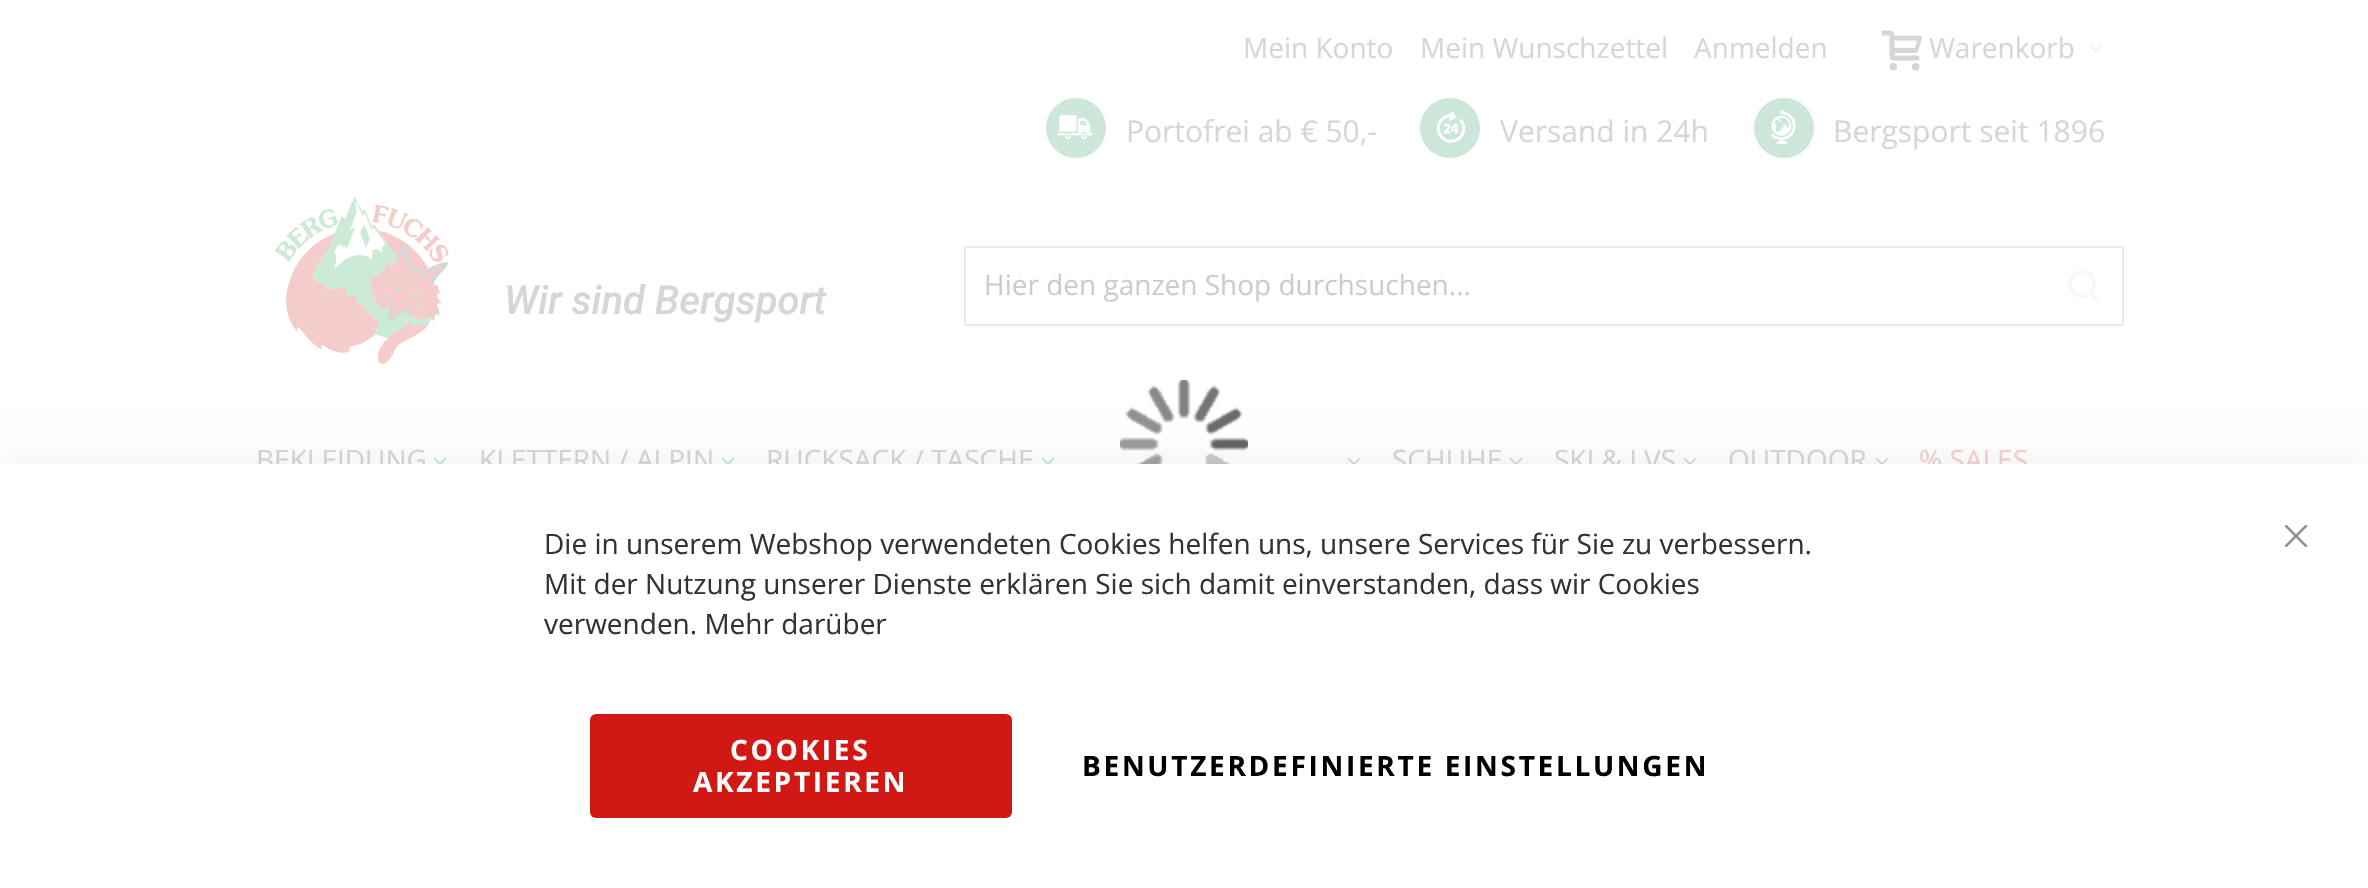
#include "include/core/SkBlurTypes.h"
#include "include/core/SkCanvas.h"
#include "include/core/SkData.h"
#include "include/core/SkFont.h"
#include "include/core/SkFontMgr.h"
#include "include/core/SkImage.h"
#include "include/core/SkMaskFilter.h"
#include "include/core/SkPaint.h"
#include "include/core/SkPathBuilder.h"
#include "include/core/SkTextBlob.h"
#include "include/effects/SkDashPathEffect.h"
#include "include/effects/SkGradientShader.h"
#include "include/utils/SkParsePath.h"

extern sk_sp<SkFontMgr> fontMgr;

static SkFont font(const char* family, int weight, float size, bool italic = false) {
    SkFontStyle style(weight, SkFontStyle::kNormal_Width,
        italic ? SkFontStyle::kItalic_Slant : SkFontStyle::kUpright_Slant);
    SkFont result(fontMgr->matchFamilyStyle(family, style), size);
    result.setSubpixel(true);
    return result;
}

static void drawLabel(SkCanvas* canvas, const char* s, float x, float y, const SkFont& font, SkColor color) {
    SkPaint ink(SkColor4f::FromColor(color));
    ink.setAntiAlias(true);
    canvas->drawString(s, x, y, font, ink);
}

static void drawTracked(SkCanvas* canvas, const char* s, float x, float y, const SkFont& font, const SkPaint& ink, float letter, float word) {
    std::vector<SkGlyphID> glyphs(font.countText(s, strlen(s), SkTextEncoding::kUTF8));
    std::vector<float> xs(glyphs.size());
    font.textToGlyphs(s, strlen(s), SkTextEncoding::kUTF8, glyphs);
    font.getXPos(glyphs, xs, x);
    float extra = 0;
    for (size_t i = 0; i < glyphs.size(); i++) {
        xs[i] += extra;
        extra += letter + word * (glyphs[i] == font.unicharToGlyph(' '));
    }
    canvas->drawTextBlob(SkTextBlob::MakeFromPosHGlyphs(glyphs, xs, y, font), 0, 0, ink);
}

static void fillRect(SkCanvas* canvas, float x, float y, float w, float h, SkColor color) {
    SkPaint ink(SkColor4f::FromColor(color));
    ink.setAntiAlias(true);
    canvas->drawRect(SkRect::MakeXYWH(x, y, w, h), ink);
}

static void fillRRect(SkCanvas* canvas, float x, float y, float w, float h, float radius, SkColor color) {
    SkPaint ink(SkColor4f::FromColor(color));
    ink.setAntiAlias(true);
    canvas->drawRoundRect(SkRect::MakeXYWH(x, y, w, h), radius, radius, ink);
}

static void drawPhoto(SkCanvas* canvas, const char* path, float x, float y, float w, float h) {
    auto image = SkImages::DeferredFromEncodedData(SkData::MakeFromFileName(path));
    canvas->drawImageRect(image, SkRect::MakeXYWH(x, y, w, h), SkSamplingOptions());
}

void draw(SkCanvas* canvas) {
    SkPaint paint;
    paint.setAntiAlias(true);
    canvas->clear(0xFFFFFFFF);
    SkFont font1 = font("Open Sans", 400, 28);
    drawLabel(canvas, "Mein Konto", 1243, 58, font1, 0xFFD6D6D6);
    drawLabel(canvas, "Mein Wunschzettel", 1420, 58, font1, 0xFFD6D6D6);
    drawLabel(canvas, "Anmelden", 1694, 58, font1, 0xFFD6D6D6);
    drawPhoto(canvas, "assets/img1.png", 1882, 30, 40, 41);
    drawLabel(canvas, "Warenkorb", 1929, 58, font1, 0xFFD6D6D6);
    drawPhoto(canvas, "assets/img2.png", 2089, 45, 14, 8);
    paint.setColor(0xFFCCE6D9);
    canvas->drawCircle(1076, 128, 30, paint);
    drawPhoto(canvas, "assets/img3.png", 1058, 115, 34, 25);
    SkFont font2 = font("Open Sans", 400, 30);
    drawLabel(canvas, "Portofrei ab € 50,-", 1126, 142, font2, 0xFFD6D6D6);
    canvas->drawCircle(1450, 128, 30, paint);
    drawPhoto(canvas, "assets/img4.png", 1436, 111, 30, 32);
    drawLabel(canvas, "Versand in 24h", 1500, 142, font2, 0xFFD6D6D6);
    canvas->drawCircle(1784, 128, 30, paint);
    drawPhoto(canvas, "assets/img5.png", 1771, 110, 25, 34);
    drawLabel(canvas, "Bergsport seit 1896", 1833, 142, font2, 0xFFD6D6D6);
    drawPhoto(canvas, "assets/img6.png", 274, 196, 175, 168);
    SkFont font3 = font("Roboto", 500, 40, true);
    drawLabel(canvas, "Wir sind Bergsport", 504, 314, font3, 0xFFD6D6D6);
    paint.setStroke(true);
    paint.setStrokeWidth(2);
    paint.setColor(0xFFEBEBEB);
    canvas->drawRoundRect(SkRect::MakeXYWH(965, 247, 1158, 78), 1, 1, paint);
    drawLabel(canvas, "Hier den ganzen Shop durchsuchen...", 984, 295, font1, 0xFFCCCCCC);
    drawPhoto(canvas, "assets/img7.png", 2068, 270, 32, 32);
    drawLabel(canvas, "BEKLEIDUNG", 256, 470, font1, 0xFFD6D6D6);
    drawPhoto(canvas, "assets/img8.png", 433, 457, 14, 7);
    drawLabel(canvas, "KLETTERN / ALPIN", 479, 470, font1, 0xFFD6D6D6);
    drawPhoto(canvas, "assets/img8.png", 721, 457, 14, 7);
    drawLabel(canvas, "RUCKSACK / TASCHE", 766, 470, font1, 0xFFD6D6D6);
    drawPhoto(canvas, "assets/img8.png", 1041, 457, 14, 7);
    drawPhoto(canvas, "assets/img8.png", 1347, 457, 14, 7);
    drawLabel(canvas, "SCHUHE", 1392, 470, font1, 0xFFD6D6D6);
    drawPhoto(canvas, "assets/img8.png", 1509, 457, 14, 7);
    drawLabel(canvas, "SKI & LVS", 1554, 470, font1, 0xFFD6D6D6);
    drawPhoto(canvas, "assets/img8.png", 1683, 457, 14, 7);
    drawLabel(canvas, "OUTDOOR", 1728, 470, font1, 0xFFD6D6D6);
    drawPhoto(canvas, "assets/img8.png", 1875, 457, 14, 7);
    drawLabel(canvas, "% SALES", 1919, 470, font1, 0xFFF6D1D0);
    drawPhoto(canvas, "assets/img9.png", 1120, 380, 128, 84);
    paint.setStroke(false);
    paint.setColor(0x0F000000);
    paint.setMaskFilter(SkMaskFilter::MakeBlur(kNormal_SkBlurStyle, 18));
    canvas->drawRect(SkRect::MakeXYWH(0, 460, 2368, 424), paint);
    paint.setMaskFilter(nullptr);
    fillRect(canvas, 0, 464, 2368, 424, 0xFFFFFFFF);
    drawLabel(canvas, "Die in unserem Webshop verwendeten Cookies helfen uns, unsere Services für Sie zu verbessern.", 544, 554, font1, 0xFF333333);
    drawLabel(canvas, "Mit der Nutzung unserer Dienste erklären Sie sich damit einverstanden, dass wir Cookies", 544, 594, font1, 0xFF333333);
    drawLabel(canvas, "verwenden. Mehr darüber", 544, 634, font1, 0xFF333333);
    fillRRect(canvas, 590, 714, 422, 104, 6, 0xFFD11815);
    SkFont font4 = font("Open Sans", 700, 28);
    paint.setColor(0xFFFFFFFF);
    drawTracked(canvas, "COOKIES", 730, 760, font4, paint, 2.7f, 0);
    drawTracked(canvas, "AKZEPTIEREN", 693, 792, font4, paint, 2.7f, 0);
    paint.setColor(0xFF000000);
    drawTracked(canvas, "BENUTZERDEFINIERTE EINSTELLUNGEN", 1082, 776, font4, paint, 2.7f, 0);
    drawPhoto(canvas, "assets/img10.png", 2284, 524, 24, 24);
}
